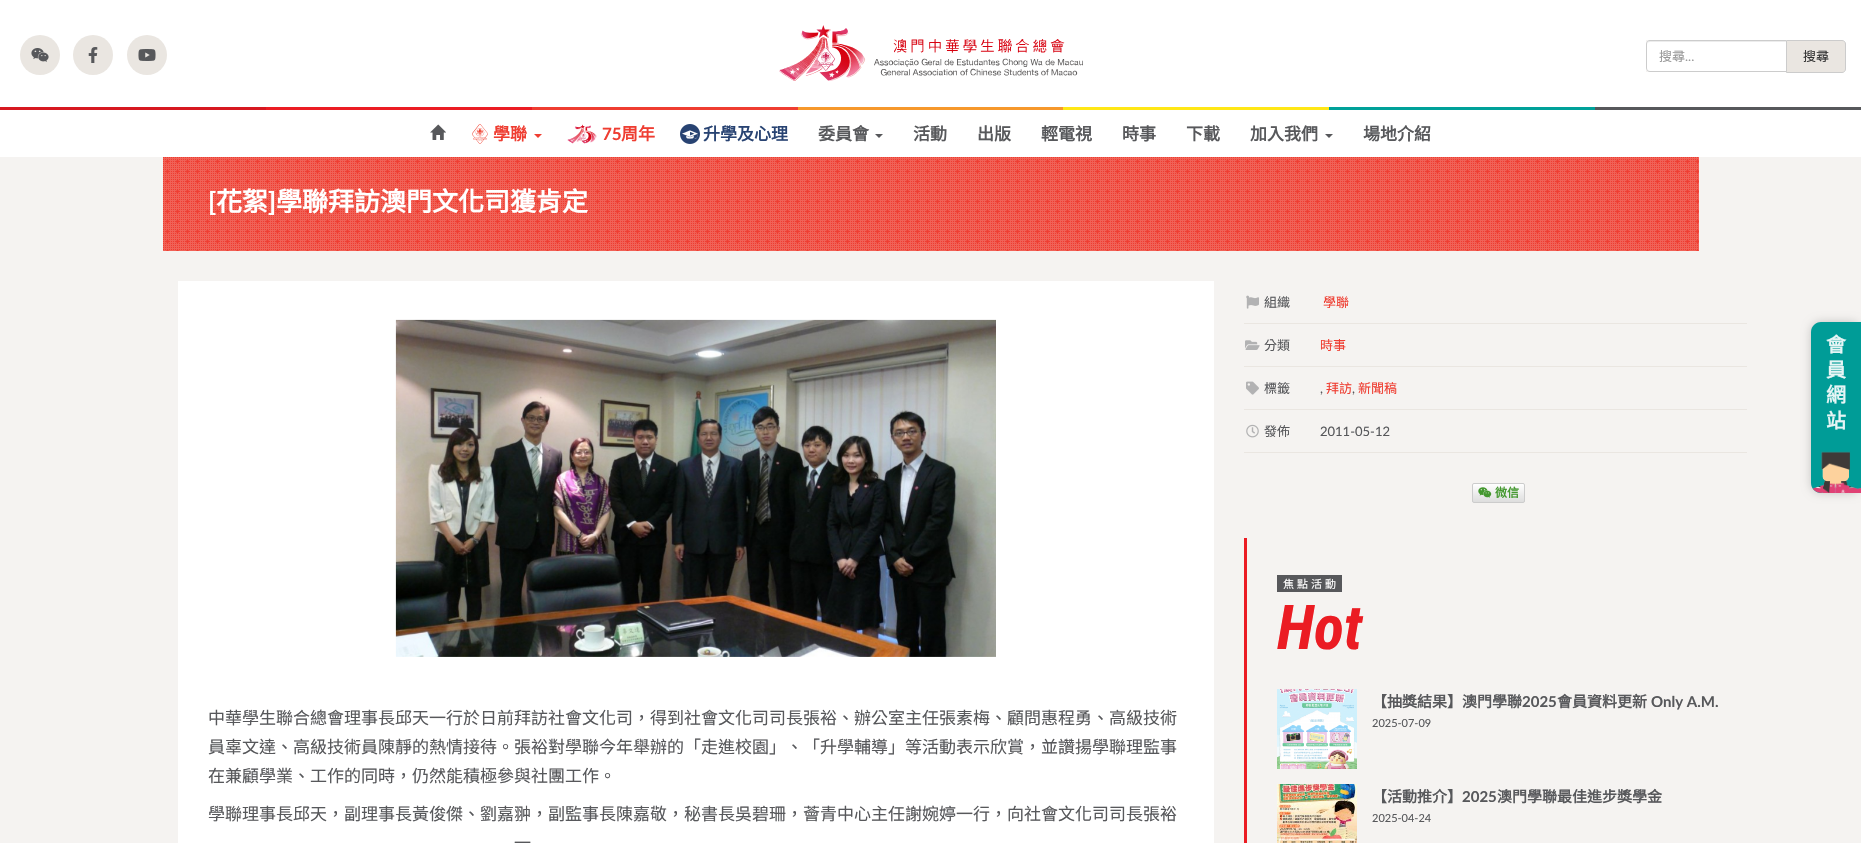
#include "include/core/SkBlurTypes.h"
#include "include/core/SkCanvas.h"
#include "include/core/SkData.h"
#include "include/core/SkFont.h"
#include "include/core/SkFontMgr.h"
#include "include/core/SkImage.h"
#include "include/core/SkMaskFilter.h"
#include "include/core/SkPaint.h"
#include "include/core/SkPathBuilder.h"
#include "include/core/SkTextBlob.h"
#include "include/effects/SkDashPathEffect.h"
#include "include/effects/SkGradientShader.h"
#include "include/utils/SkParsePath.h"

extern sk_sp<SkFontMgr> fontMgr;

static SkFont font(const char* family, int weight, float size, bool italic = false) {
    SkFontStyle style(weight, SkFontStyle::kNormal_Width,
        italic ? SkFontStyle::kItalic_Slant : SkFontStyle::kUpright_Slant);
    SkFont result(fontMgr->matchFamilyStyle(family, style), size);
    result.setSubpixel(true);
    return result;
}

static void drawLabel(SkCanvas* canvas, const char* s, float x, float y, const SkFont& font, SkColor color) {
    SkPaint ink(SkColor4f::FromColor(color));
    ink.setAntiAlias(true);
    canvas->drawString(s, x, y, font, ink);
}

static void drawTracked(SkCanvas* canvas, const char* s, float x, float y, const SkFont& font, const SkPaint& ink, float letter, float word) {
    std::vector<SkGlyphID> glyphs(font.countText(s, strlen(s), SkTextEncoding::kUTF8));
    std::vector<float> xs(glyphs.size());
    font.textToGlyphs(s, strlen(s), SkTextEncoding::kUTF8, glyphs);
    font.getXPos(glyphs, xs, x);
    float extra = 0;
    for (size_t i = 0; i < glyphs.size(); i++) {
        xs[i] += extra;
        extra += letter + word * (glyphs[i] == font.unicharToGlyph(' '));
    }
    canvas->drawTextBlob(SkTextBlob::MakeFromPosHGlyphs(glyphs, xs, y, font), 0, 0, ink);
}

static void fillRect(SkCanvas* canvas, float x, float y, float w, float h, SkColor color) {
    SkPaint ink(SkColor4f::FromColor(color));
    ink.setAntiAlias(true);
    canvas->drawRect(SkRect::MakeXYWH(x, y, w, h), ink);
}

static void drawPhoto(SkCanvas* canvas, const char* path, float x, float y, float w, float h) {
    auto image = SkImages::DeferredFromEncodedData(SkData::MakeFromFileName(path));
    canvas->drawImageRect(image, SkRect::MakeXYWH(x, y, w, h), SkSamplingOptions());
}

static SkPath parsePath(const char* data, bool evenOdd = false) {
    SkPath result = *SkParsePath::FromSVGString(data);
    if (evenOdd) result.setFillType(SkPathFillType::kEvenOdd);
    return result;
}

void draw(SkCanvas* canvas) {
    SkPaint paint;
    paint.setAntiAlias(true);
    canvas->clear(0xFFF5F3F1);
    fillRect(canvas, 0, 0, 1861, 157, 0xFFFFFFFF);
    paint.setColor(0xFFEAE6E1);
    canvas->drawCircle(40, 55, 20, paint);
    drawPhoto(canvas, "assets/img1.png", 31, 48, 18, 14);
    canvas->drawCircle(93, 55, 20, paint);
    drawPhoto(canvas, "assets/img2.png", 88, 47, 10, 16);
    canvas->drawCircle(147, 55, 20, paint);
    drawPhoto(canvas, "assets/img3.png", 138, 49, 18, 12);
    drawPhoto(canvas, "assets/img4.png", 779, 25, 304, 56);
    fillRect(canvas, 1646, 40, 4, 32, 0xFFF5F3F1);
    paint.setColor(0xFFFFFFFF);
    canvas->drawPath(parsePath("M1650 40H1786V72H1650C1648 72 1646 70 1646 68V44C1646 42 1648 40 1650 40Z"), paint);
    paint.setColor(0xFFECECEC);
    canvas->drawPath(parsePath("M1650 42H1786V41H1650C1648 41 1647 43 1647 45C1647 43 1648 42 1650 42Z"), paint);
    paint.setColor(0xFFCCCCCC);
    canvas->drawPath(parsePath("M1650 40H1786V72H1650C1648 72 1646 70 1646 68V44C1646 42 1648 40 1650 40ZM1650 41H1786V71H1650C1648 71 1647 70 1647 68V44C1647 42 1648 41 1650 41Z", true), paint);
    SkFont font1 = font("Noto Sans CJK TC", 400, 13);
    drawLabel(canvas, "搜尋", 1659, 61, font1, 0xFF999999);
    SkFont font2 = font("Lato", 400, 13);
    drawLabel(canvas, "...", 1685, 61, font2, 0xFF999999);
    paint.setColor(0xFFEAE6E1);
    canvas->drawPath(parsePath("M1786.5 40.5H1842C1844 40.5 1845.5 42 1845.5 44V69C1845.5 71 1844 72.5 1842 72.5H1786.5Z"), paint);
    paint.setStroke(true);
    paint.setStrokeWidth(1);
    paint.setColor(0xFFCCCCCC);
    canvas->drawPath(parsePath("M1786.5 40.5H1842C1844 40.5 1845.5 42 1845.5 44V69C1845.5 71 1844 72.5 1842 72.5H1786.5Z"), paint);
    drawLabel(canvas, "搜尋", 1803, 61, font1, 0xFF333333);
    fillRect(canvas, 0, 107, 266, 3, 0xFFD61820);
    fillRect(canvas, 266, 107, 266, 3, 0xFFEB1C23);
    fillRect(canvas, 532, 107, 266, 3, 0xFFEF3D31);
    fillRect(canvas, 798, 107, 265, 3, 0xFFF6982B);
    fillRect(canvas, 1063, 107, 266, 3, 0xFFFFE716);
    fillRect(canvas, 1329, 107, 266, 3, 0xFF00A199);
    fillRect(canvas, 1595, 107, 266, 3, 0xFF57585B);
    drawPhoto(canvas, "assets/img5.png", 430, 124, 16, 16);
    drawPhoto(canvas, "assets/img6.png", 472, 124, 16, 20);
    SkFont font3 = font("Noto Sans CJK TC", 700, 17);
    drawLabel(canvas, "學聯", 493, 140, font3, 0xFFEF3D31);
    paint.setStroke(false);
    paint.setColor(0xFFEF3D31);
    canvas->drawPath(parsePath("M534 134H542L538 138Z"), paint);
    drawPhoto(canvas, "assets/img7.png", 567, 124, 30, 20);
    SkFont font4 = font("Lato", 700, 17);
    drawLabel(canvas, "75", 602, 140, font4, 0xFFEF3D31);
    drawLabel(canvas, "周年", 621, 140, font3, 0xFFEF3D31);
    drawPhoto(canvas, "assets/img8.png", 680, 124, 20, 20);
    drawLabel(canvas, "升學及心理", 703, 140, font3, 0xFF284372);
    drawLabel(canvas, "委員會", 818, 140, font3, 0xFF57585B);
    paint.setColor(0xFF57585B);
    canvas->drawPath(parsePath("M875 134H883L879 138Z"), paint);
    drawLabel(canvas, "活動", 913, 140, font3, 0xFF57585B);
    drawLabel(canvas, "出版", 977, 140, font3, 0xFF57585B);
    drawLabel(canvas, "輕電視", 1041, 140, font3, 0xFF57585B);
    drawLabel(canvas, "時事", 1122, 140, font3, 0xFF57585B);
    drawLabel(canvas, "下載", 1186, 140, font3, 0xFF57585B);
    drawLabel(canvas, "加入我們", 1250, 140, font3, 0xFF57585B);
    canvas->drawPath(parsePath("M1325 134H1333L1329 138Z"), paint);
    drawLabel(canvas, "場地介紹", 1363, 140, font3, 0xFF57585B);
    paint.setColor(0x33000000);
    paint.setMaskFilter(SkMaskFilter::MakeBlur(kNormal_SkBlurStyle, 5));
    canvas->drawRoundRect(SkRect::MakeXYWH(1811, 322, 50, 171), 10, 10, paint);
    paint.setMaskFilter(nullptr);
    paint.setColor(0xFF009C97);
    canvas->drawPath(parsePath("M1821 322H1861V493H1821C1815.5 493 1811 488.5 1811 483V332C1811 326.5 1815.5 322 1821 322Z"), paint);
    drawPhoto(canvas, "assets/img9.png", 1812, 451, 49, 42);
    SkFont font5 = font("Noto Sans CJK TC", 700, 20);
    drawLabel(canvas, "會", 1826, 352, font5, 0xFFE6F5F5);
    drawLabel(canvas, "員", 1826, 377, font5, 0xFFE6F5F5);
    drawLabel(canvas, "網", 1826, 402, font5, 0xFFE6F5F5);
    drawLabel(canvas, "站", 1826, 428, font5, 0xFFE6F5F5);
    fillRect(canvas, 163, 157, 1536, 94, 0xFFF06257);
    drawPhoto(canvas, "assets/img10.png", 163, 157, 1536, 94);
    SkFont font6 = font("Lato", 700, 26);
    drawLabel(canvas, "[", 208, 211, font6, 0xFFFFFFFF);
    SkFont font7 = font("Noto Sans CJK TC", 700, 26);
    drawLabel(canvas, "花絮", 216, 211, font7, 0xFFFFFFFF);
    drawLabel(canvas, "]", 268, 211, font6, 0xFFFFFFFF);
    drawLabel(canvas, "學聯拜訪澳門文化司獲肯定", 276, 211, font7, 0xFFFFFFFF);
    fillRect(canvas, 178, 281, 1036, 562, 0xFFFFFFFF);
    drawPhoto(canvas, "assets/img11.png", 395, 319, 601, 338);
    SkFont font8 = font("Noto Sans CJK TC", 400, 17);
    drawLabel(canvas, "中華學生聯合總會理事長邱天一行於日前拜訪社會文化司，得到社會文化司司長張裕、辦公室主任張素梅、顧問惠程勇、高級技術", 208, 724, font8, 0xFF57585B);
    drawLabel(canvas, "員辜文達、高級技術員陳靜的熱情接待。張裕對學聯今年舉辦的「走進校園」、「升學輔導」等活動表示欣賞，並讚揚學聯理監事", 208, 753, font8, 0xFF57585B);
    drawLabel(canvas, "在兼顧學業、工作的同時，仍然能積極參與社團工作。", 208, 782, font8, 0xFF57585B);
    drawLabel(canvas, "學聯理事長邱天，副理事長黃俊傑、劉嘉翀，副監事長陳嘉敬，秘書長吳碧珊，薈青中心主任謝婉婷一行，向社會文化司司長張裕", 208, 820, font8, 0xFF57585B);
    drawLabel(canvas, "一", 514, 849, font8, 0xFF57585B);
    fillRect(canvas, 1244, 323, 503, 1, 0xFFEAE6E1);
    drawPhoto(canvas, "assets/img12.png", 1246, 295, 13, 14);
    drawLabel(canvas, "組織", 1264, 307, font1, 0xFF57585B);
    drawLabel(canvas, "學聯", 1323, 307, font1, 0xFFEF3D31);
    fillRect(canvas, 1244, 366, 503, 1, 0xFFEAE6E1);
    drawPhoto(canvas, "assets/img13.png", 1245, 340, 15, 10);
    drawLabel(canvas, "分類", 1264, 350, font1, 0xFF57585B);
    drawLabel(canvas, "時事", 1320, 350, font1, 0xFFEF3D31);
    fillRect(canvas, 1244, 409, 503, 1, 0xFFEAE6E1);
    drawPhoto(canvas, "assets/img14.png", 1246, 381, 13, 14);
    drawLabel(canvas, "標籤", 1264, 393, font1, 0xFF57585B);
    drawLabel(canvas, ",", 1320, 393, font2, 0xFF57585B);
    drawLabel(canvas, "拜訪", 1326, 393, font1, 0xFFEF3D31);
    drawLabel(canvas, ",", 1352, 393, font2, 0xFF57585B);
    drawLabel(canvas, "新聞稿", 1358, 393, font1, 0xFFEF3D31);
    fillRect(canvas, 1244, 452, 503, 1, 0xFFEAE6E1);
    drawPhoto(canvas, "assets/img15.png", 1246, 424, 13, 14);
    drawLabel(canvas, "發佈", 1264, 436, font1, 0xFF57585B);
    drawLabel(canvas, "2011-05-12", 1320, 436, font2, 0xFF57585B);
    canvas->save();
    canvas->clipPath(parsePath("M1474 483H1523C1524 483 1525 484 1525 485V501C1525 502 1524 503 1523 503H1474C1473 503 1472 502 1472 501V485C1472 484 1473 483 1474 483Z"), true);
    {
        const SkColor colors[] = {0xFFFFFFFF, 0xFFDDDDDD};
        const float stops[] = {0, 1};
        const SkPoint ends[] = {{1499, 484}, {1499, 502}};
        paint.setShader(SkGradientShader::MakeLinear(ends, colors, stops, 2, SkTileMode::kClamp));
        paint.setAlpha(255);
    }
    canvas->drawRect(SkRect::MakeXYWH(1472, 484, 53, 18), paint);
    canvas->restore();
    paint.setStroke(true);
    paint.setShader(nullptr);
    paint.setColor(0xFFCCCCCC);
    canvas->drawRoundRect(SkRect::MakeXYWH(1472.5f, 483.5f, 52, 19), 1.5f, 1.5f, paint);
    drawPhoto(canvas, "assets/img16.png", 1478, 487, 14, 11);
    SkFont font9 = font("Noto Sans CJK TC", 700, 12);
    drawLabel(canvas, "微信", 1495, 497, font9, 0xFF44982F);
    fillRect(canvas, 1244, 538, 3, 305, 0xFFEB1C23);
    fillRect(canvas, 1277, 575, 65, 17, 0xFF57585B);
    SkFont font10 = font("Noto Sans CJK TC", 400, 11);
    paint.setStroke(false);
    paint.setColor(0xFFFFFFFF);
    drawTracked(canvas, "焦點活動", 1283, 588, font10, paint, 3, 0);
    SkFont font11 = font("Roboto Condensed", 700, 62, true);
    drawLabel(canvas, "Hot", 1277, 649, font11, 0xFFEB1C23);
    drawPhoto(canvas, "assets/img17.png", 1277, 689, 80, 80);
    SkFont font12 = font("Noto Sans CJK TC", 700, 15);
    drawLabel(canvas, "【抽獎結果】澳門學聯", 1372, 707, font12, 0xFF57585B);
    SkFont font13 = font("Lato", 700, 15);
    drawLabel(canvas, "2025", 1522, 707, font13, 0xFF57585B);
    drawLabel(canvas, "會員資料更新", 1557, 707, font12, 0xFF57585B);
    drawLabel(canvas, "Only A.M.", 1651, 707, font13, 0xFF57585B);
    SkFont font14 = font("Lato", 400, 11);
    drawLabel(canvas, "2025-07-09", 1372, 727, font14, 0xFF57585B);
    drawPhoto(canvas, "assets/img18.png", 1277, 784, 80, 59);
    drawLabel(canvas, "【活動推介】", 1372, 802, font12, 0xFF57585B);
    drawLabel(canvas, "2025", 1462, 802, font13, 0xFF57585B);
    drawLabel(canvas, "澳門學聯最佳進步獎學金", 1497, 802, font12, 0xFF57585B);
    drawLabel(canvas, "2025-04-24", 1372, 822, font14, 0xFF57585B);
}
